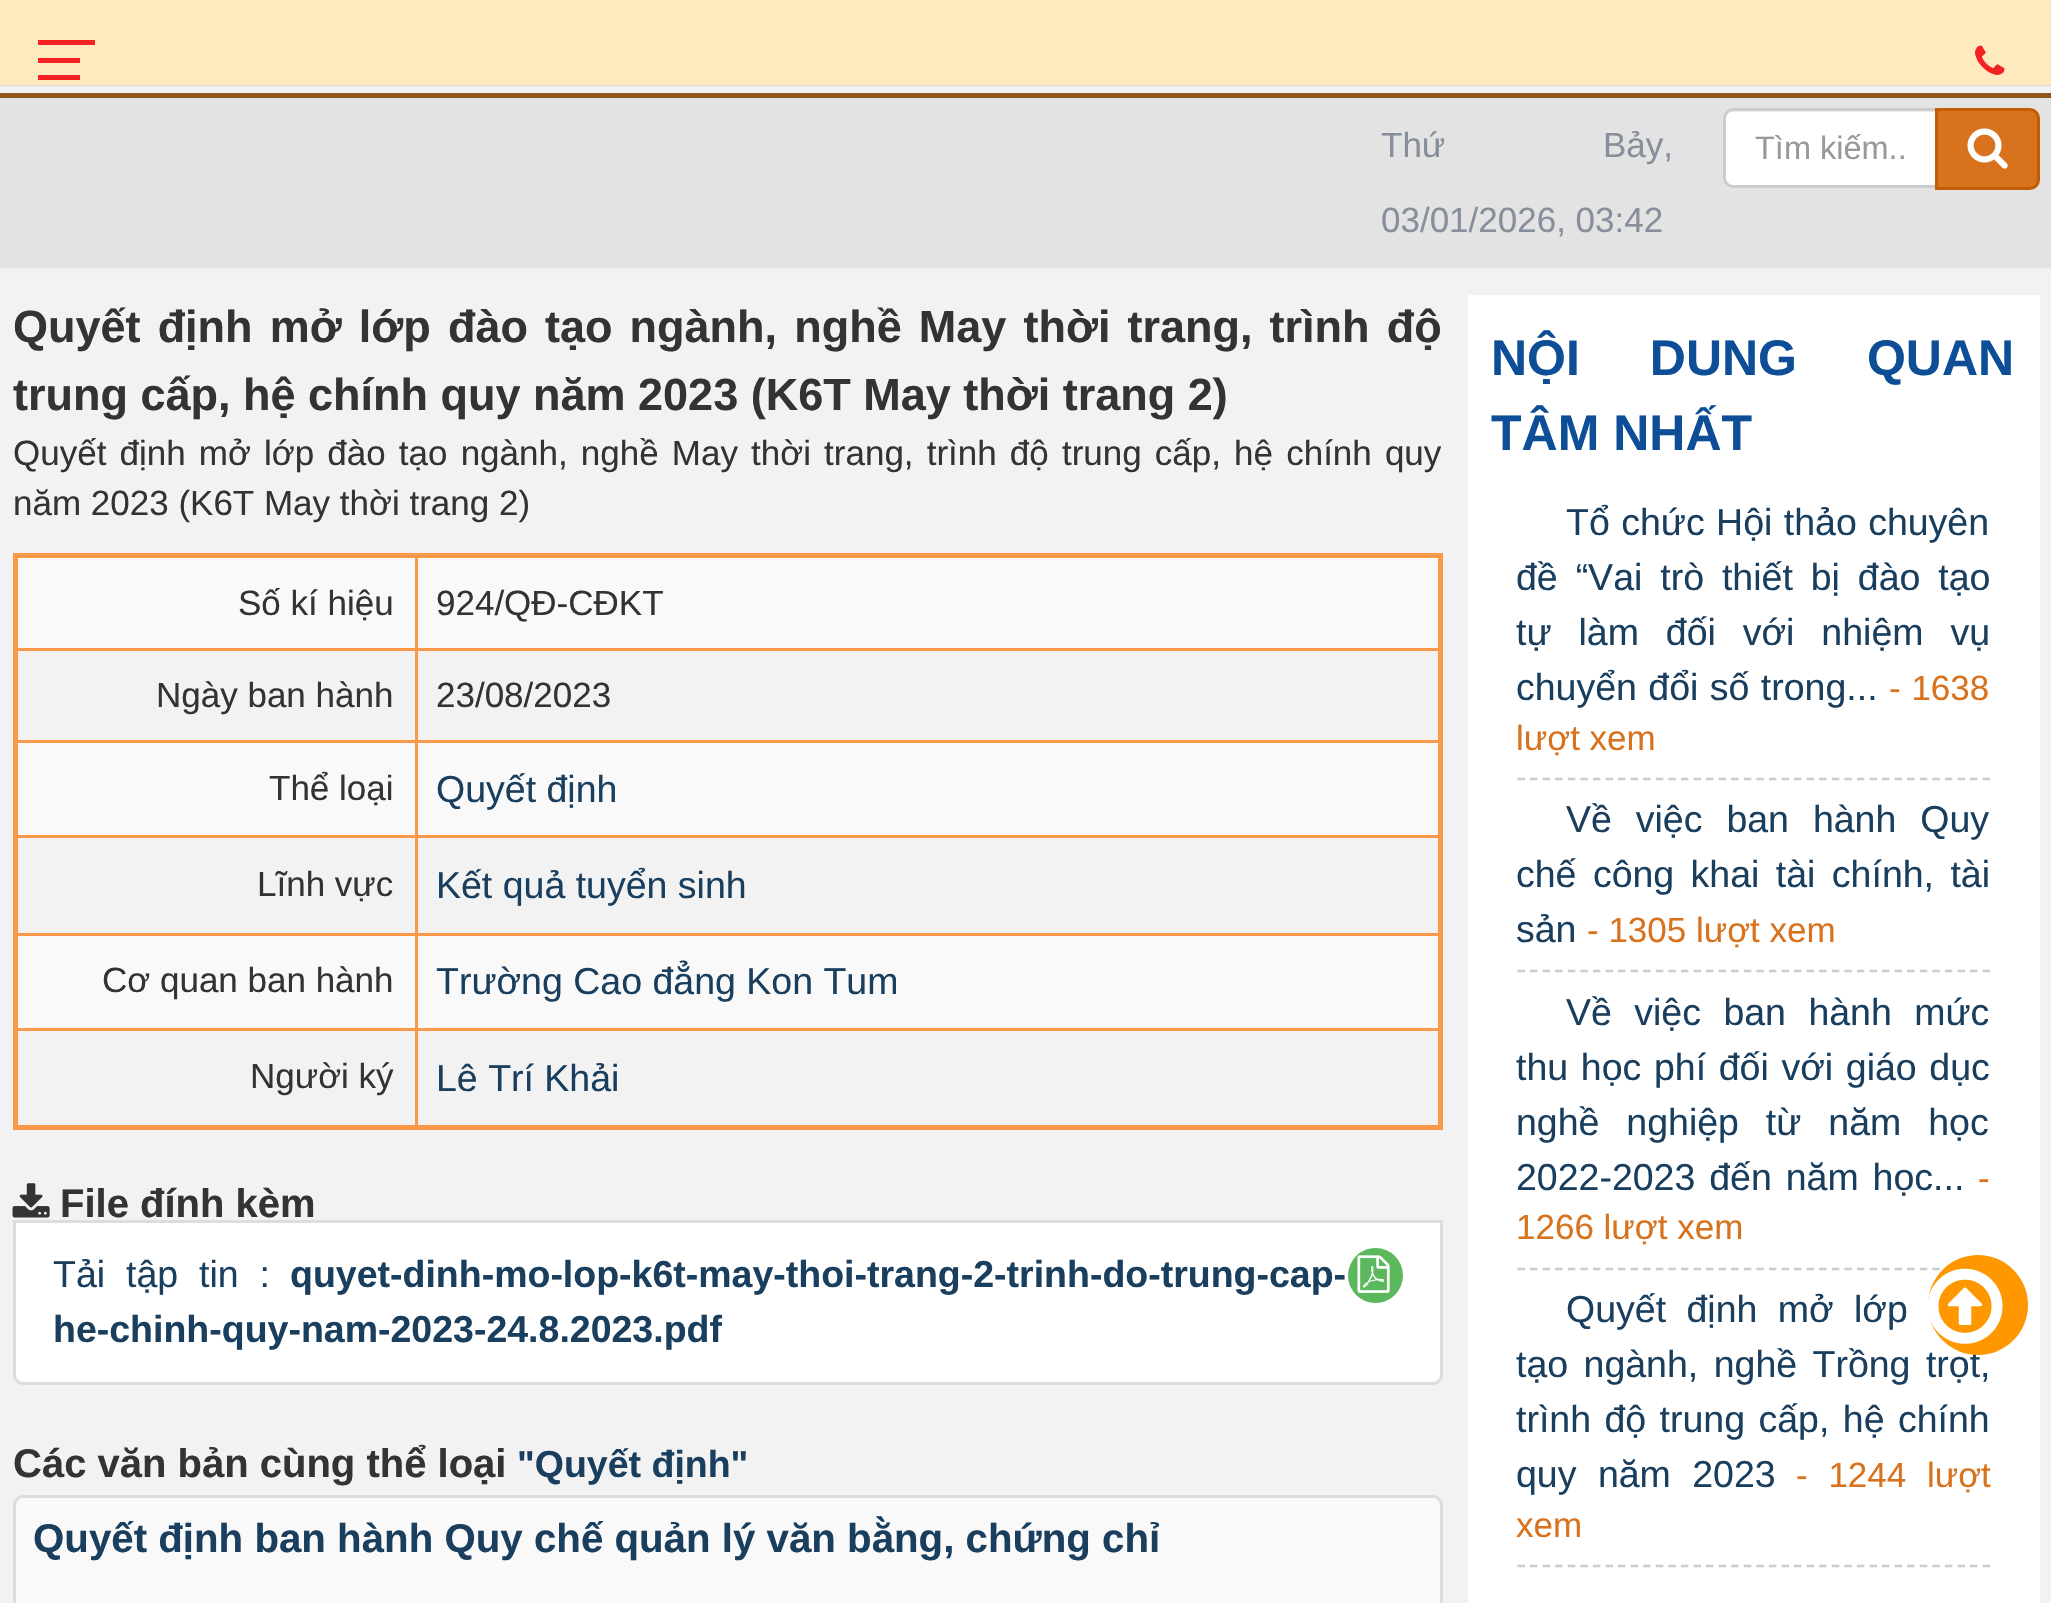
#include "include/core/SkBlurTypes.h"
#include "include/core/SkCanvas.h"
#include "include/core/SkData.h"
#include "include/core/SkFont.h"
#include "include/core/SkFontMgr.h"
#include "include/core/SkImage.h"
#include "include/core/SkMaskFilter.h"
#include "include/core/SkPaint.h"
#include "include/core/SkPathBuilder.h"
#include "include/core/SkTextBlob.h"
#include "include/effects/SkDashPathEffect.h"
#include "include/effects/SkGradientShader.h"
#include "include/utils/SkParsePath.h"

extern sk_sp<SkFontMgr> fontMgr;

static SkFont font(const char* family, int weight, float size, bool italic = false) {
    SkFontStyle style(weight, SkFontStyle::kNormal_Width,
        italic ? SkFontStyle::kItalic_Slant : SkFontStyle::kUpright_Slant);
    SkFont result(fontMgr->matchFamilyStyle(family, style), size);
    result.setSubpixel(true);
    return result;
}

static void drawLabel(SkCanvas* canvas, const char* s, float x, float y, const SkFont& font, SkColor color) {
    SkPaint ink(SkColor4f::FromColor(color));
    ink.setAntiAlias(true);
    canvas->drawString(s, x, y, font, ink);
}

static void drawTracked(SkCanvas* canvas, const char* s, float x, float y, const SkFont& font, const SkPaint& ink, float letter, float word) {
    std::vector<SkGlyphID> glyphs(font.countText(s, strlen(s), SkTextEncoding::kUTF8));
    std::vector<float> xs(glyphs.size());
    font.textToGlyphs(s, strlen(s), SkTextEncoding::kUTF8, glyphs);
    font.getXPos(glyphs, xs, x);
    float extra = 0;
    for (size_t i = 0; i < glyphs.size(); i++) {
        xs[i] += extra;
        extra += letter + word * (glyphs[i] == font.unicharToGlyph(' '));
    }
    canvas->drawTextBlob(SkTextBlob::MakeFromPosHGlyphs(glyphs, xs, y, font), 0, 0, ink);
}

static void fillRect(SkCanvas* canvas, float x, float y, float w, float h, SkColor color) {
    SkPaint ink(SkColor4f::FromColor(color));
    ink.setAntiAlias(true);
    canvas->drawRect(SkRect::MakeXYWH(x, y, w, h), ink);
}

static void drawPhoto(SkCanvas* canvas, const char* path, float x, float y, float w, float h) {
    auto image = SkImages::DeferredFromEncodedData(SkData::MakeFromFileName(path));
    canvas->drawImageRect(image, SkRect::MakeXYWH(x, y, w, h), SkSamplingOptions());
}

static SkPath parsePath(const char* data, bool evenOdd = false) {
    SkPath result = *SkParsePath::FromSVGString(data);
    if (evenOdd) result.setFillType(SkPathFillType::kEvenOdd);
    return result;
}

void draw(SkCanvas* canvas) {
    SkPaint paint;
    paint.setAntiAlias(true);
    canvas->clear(0xFFF2F2F2);
    paint.setColor(0x4D000000);
    paint.setMaskFilter(SkMaskFilter::MakeBlur(kNormal_SkBlurStyle, 1));
    canvas->drawRect(SkRect::MakeXYWH(0, 0, 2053, 85), paint);
    paint.setMaskFilter(nullptr);
    fillRect(canvas, 0, 0, 2051, 85, 0xFFFFEAC0);
    fillRect(canvas, 38, 58, 42, 5, 0xFFF42222);
    fillRect(canvas, 38, 40, 57, 5, 0xFFF42222);
    fillRect(canvas, 38, 75, 42, 5, 0xFFF42222);
    drawPhoto(canvas, "assets/img1.png", 1975, 45, 30, 30);
    fillRect(canvas, 0, 93, 2051, 5, 0xFF90571D);
    fillRect(canvas, 0, 98, 2051, 170, 0xFFE3E3E3);
    SkFont font1 = font("Liberation Sans", 400, 35);
    paint.setColor(0xFF878E9C);
    drawTracked(canvas, "Thứ Bảy,", 1381, 157, font1, paint, 0, 148);
    drawLabel(canvas, "03/01/2026, 03:42", 1381, 232, font1, 0xFF878E9C);
    paint.setColor(0xFFFFFFFF);
    canvas->drawPath(parsePath("M1733 108H1938V188H1733C1727.5 188 1723 183.5 1723 178V118C1723 112.5 1727.5 108 1733 108Z"), paint);
    paint.setColor(0xFFECECEC);
    canvas->drawPath(parsePath("M1732 112H1935V110H1733C1729 110 1725 114 1725 118V120C1725 116 1728 112 1732 112Z"), paint);
    paint.setStroke(true);
    paint.setStrokeWidth(3);
    paint.setColor(0xFFCCCCCC);
    canvas->drawPath(parsePath("M1733 109.5H1936.5V186.5H1733C1728.5 186.5 1724.5 182.5 1724.5 178V118C1724.5 113.5 1728.5 109.5 1733 109.5Z"), paint);
    SkFont font2 = font("Liberation Sans", 400, 32.5f);
    drawLabel(canvas, "Tìm kiếm..", 1755, 159, font2, 0xFF999999);
    paint.setStroke(false);
    paint.setColor(0xFFD8721D);
    canvas->drawPath(parsePath("M1936.5 109.5H2030C2034.5 109.5 2038.5 113.5 2038.5 118V180C2038.5 184.5 2034.5 188.5 2030 188.5H1936.5Z"), paint);
    paint.setStroke(true);
    paint.setColor(0xFFC25C07);
    canvas->drawPath(parsePath("M1936.5 109.5H2030C2034.5 109.5 2038.5 113.5 2038.5 118V180C2038.5 184.5 2034.5 188.5 2030 188.5H1936.5Z"), paint);
    drawPhoto(canvas, "assets/img2.png", 1967, 128, 41, 41);
    SkFont font3 = font("Liberation Sans", 700, 45);
    paint.setStroke(false);
    paint.setColor(0xFF333333);
    drawTracked(canvas, "Quyết định mở lớp đào tạo ngành, nghề May thời trang, trình độ", 13, 342, font3, paint, 0, 4.6f);
    drawLabel(canvas, "trung cấp, hệ chính quy năm 2023 (K6T May thời trang 2)", 13, 410, font3, 0xFF333333);
    drawTracked(canvas, "Quyết định mở lớp đào tạo ngành, nghề May thời trang, trình độ trung cấp, hệ chính quy", 13, 465, font1, paint, 0, 3.4f);
    drawLabel(canvas, "năm 2023 (K6T May thời trang 2)", 13, 515, font1, 0xFF333333);
    fillRect(canvas, 18, 558, 1420, 90, 0xFFF9F9F9);
    fillRect(canvas, 415, 648, 1025, 3, 0xFFF99949);
    fillRect(canvas, 415, 740, 1025, 3, 0xFFF99949);
    fillRect(canvas, 18, 743, 1420, 92, 0xFFF9F9F9);
    fillRect(canvas, 415, 835, 1025, 3, 0xFFF99949);
    fillRect(canvas, 415, 933, 1025, 3, 0xFFF99949);
    fillRect(canvas, 18, 936, 1420, 92, 0xFFF9F9F9);
    fillRect(canvas, 415, 1028, 1025, 3, 0xFFF99949);
    fillRect(canvas, 415, 1028, 3, 100, 0xFFF99949);
    fillRect(canvas, 15, 1028, 403, 3, 0xFFF99949);
    fillRect(canvas, 415, 933, 3, 97, 0xFFF99949);
    fillRect(canvas, 15, 933, 403, 3, 0xFFF99949);
    fillRect(canvas, 415, 835, 3, 100, 0xFFF99949);
    fillRect(canvas, 15, 835, 403, 3, 0xFFF99949);
    fillRect(canvas, 415, 740, 3, 98, 0xFFF99949);
    fillRect(canvas, 15, 740, 403, 3, 0xFFF99949);
    fillRect(canvas, 415, 648, 3, 95, 0xFFF99949);
    fillRect(canvas, 15, 648, 403, 3, 0xFFF99949);
    fillRect(canvas, 415, 553, 3, 97, 0xFFF99949);
    fillRect(canvas, 13, 553, 1430, 5, 0xFFF99949);
    fillRect(canvas, 1438, 553, 5, 577, 0xFFF99949);
    fillRect(canvas, 13, 1125, 1430, 5, 0xFFF99949);
    fillRect(canvas, 13, 553, 5, 577, 0xFFF99949);
    drawLabel(canvas, "Số kí hiệu", 238, 615, font1, 0xFF333333);
    drawLabel(canvas, "924/QĐ-CĐKT", 436, 615, font1, 0xFF333333);
    drawLabel(canvas, "Ngày ban hành", 156, 707, font1, 0xFF333333);
    drawLabel(canvas, "23/08/2023", 436, 707, font1, 0xFF333333);
    drawLabel(canvas, "Thể loại", 269, 800, font1, 0xFF333333);
    SkFont font4 = font("Liberation Sans", 400, 37.5f);
    drawLabel(canvas, "Quyết định", 436, 802, font4, 0xFF1A3F5E);
    drawLabel(canvas, "Lĩnh vực", 257, 896, font1, 0xFF333333);
    drawLabel(canvas, "Kết quả tuyển sinh", 436, 898, font4, 0xFF1A3F5E);
    drawLabel(canvas, "Cơ quan ban hành", 102, 992, font1, 0xFF333333);
    drawLabel(canvas, "Trường Cao đẳng Kon Tum", 436, 994, font4, 0xFF1A3F5E);
    drawLabel(canvas, "Người ký", 250, 1088, font1, 0xFF333333);
    drawLabel(canvas, "Lê Trí Khải", 436, 1091, font4, 0xFF1A3F5E);
    drawPhoto(canvas, "assets/img3.png", 12, 1183, 38, 35);
    SkFont font5 = font("Liberation Sans", 700, 40);
    drawLabel(canvas, "File đính kèm", 60, 1217, font5, 0xFF333333);
    paint.setColor(0xFFFFFFFF);
    canvas->drawPath(parsePath("M14.5 1221.5H1441.5V1375C1441.5 1379.5 1437.5 1383.5 1433 1383.5H23C18.5 1383.5 14.5 1379.5 14.5 1375Z"), paint);
    paint.setStroke(true);
    paint.setColor(0xFFDDDDDD);
    canvas->drawPath(parsePath("M14.5 1221.5H1441.5V1375C1441.5 1379.5 1437.5 1383.5 1433 1383.5H23C18.5 1383.5 14.5 1379.5 14.5 1375Z"), paint);
    paint.setStroke(false);
    paint.setColor(0xFF1A3F5E);
    drawTracked(canvas, "Tải tập tin :", 53, 1287, font4, paint, 0, 10.5f);
    SkFont font6 = font("Liberation Sans", 700, 37.5f);
    drawLabel(canvas, "quyet-dinh-mo-lop-k6t-may-thoi-trang-2-trinh-do-trung-cap-", 290, 1287, font6, 0xFF1A3F5E);
    paint.setColor(0xFF5CB85C);
    canvas->drawCircle(1375.5f, 1275.5f, 27.5f, paint);
    drawPhoto(canvas, "assets/img4.png", 1357, 1255, 33, 38);
    drawLabel(canvas, "he-chinh-quy-nam-2023-24.8.2023.pdf", 53, 1342, font6, 0xFF1A3F5E);
    drawLabel(canvas, "Các văn bản cùng thể loại", 13, 1477, font5, 0xFF333333);
    drawLabel(canvas, "\"Quyết định\"", 517, 1477, font6, 0xFF1A3F5E);
    paint.setColor(0xFFF9F9F9);
    canvas->drawRoundRect(SkRect::MakeXYWH(14.5f, 1496.5f, 1427, 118), 8.5f, 8.5f, paint);
    paint.setStroke(true);
    paint.setColor(0xFFDDDDDD);
    canvas->drawRoundRect(SkRect::MakeXYWH(14.5f, 1496.5f, 1427, 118), 8.5f, 8.5f, paint);
    SkFont font7 = font("Liberation Sans", 700, 40.25f);
    drawLabel(canvas, "Quyết định ban hành Quy chế quản lý văn bằng, chứng chỉ", 33, 1552, font7, 0xFF1A3F5E);
    fillRect(canvas, 1468, 295, 572, 1308, 0xFFFFFFFF);
    SkFont font8 = font("Liberation Sans", 700, 50);
    paint.setStroke(false);
    paint.setColor(0xFF0D4E96);
    drawTracked(canvas, "NỘI DUNG QUAN", 1491, 375, font8, paint, 0, 56);
    drawLabel(canvas, "TÂM NHẤT", 1491, 450, font8, 0xFF0D4E96);
    paint.setStroke(true);
    paint.setStrokeWidth(2.5f);
    paint.setColor(0xFFCCCCCC);
    paint.setPathEffect(SkDashPathEffect::Make({{7.5f, 5.07f}}, 0));
    canvas->drawPath(parsePath("M1517.5 779H1990"), paint);
    paint.setPathEffect(nullptr);
    paint.setStroke(false);
    paint.setColor(0xFF1A3F5E);
    drawTracked(canvas, "Tổ chức Hội thảo chuyên", 1566, 535, font4, paint, 0, 1);
    drawTracked(canvas, "đề “Vai trò thiết bị đào tạo", 1516, 590, font4, paint, 0, 7.5f);
    drawTracked(canvas, "tự làm đối với nhiệm vụ", 1516, 645, font4, paint, 0, 16.5f);
    drawTracked(canvas, "chuyển đổi số trong...", 1516, 700, font4, paint, 0, 1);
    paint.setColor(0xFFD8721D);
    drawTracked(canvas, "- 1638", 1889, 700, font1, paint, 0, 1);
    drawLabel(canvas, "lượt xem", 1516, 750, font1, 0xFFD8721D);
    paint.setStroke(true);
    paint.setColor(0xFFCCCCCC);
    paint.setPathEffect(SkDashPathEffect::Make({{7.5f, 5.07f}}, 0));
    canvas->drawPath(parsePath("M1517.5 971H1990"), paint);
    paint.setPathEffect(nullptr);
    paint.setStroke(false);
    paint.setColor(0xFF1A3F5E);
    drawTracked(canvas, "Về việc ban hành Quy", 1566, 832, font4, paint, 0, 13.5f);
    drawTracked(canvas, "chế công khai tài chính, tài", 1516, 887, font4, paint, 0, 6);
    drawLabel(canvas, "sản", 1516, 942, font4, 0xFF1A3F5E);
    drawLabel(canvas, "- 1305 lượt xem", 1587, 942, font1, 0xFFD8721D);
    paint.setStroke(true);
    paint.setColor(0xFFCCCCCC);
    paint.setPathEffect(SkDashPathEffect::Make({{7.5f, 5.07f}}, 0));
    canvas->drawPath(parsePath("M1517.5 1269H1990"), paint);
    paint.setPathEffect(nullptr);
    paint.setStroke(false);
    paint.setColor(0xFF1A3F5E);
    drawTracked(canvas, "Về việc ban hành mức", 1566, 1025, font4, paint, 0, 12);
    drawTracked(canvas, "thu học phí đối với giáo dục", 1516, 1080, font4, paint, 0, 2.25f);
    drawTracked(canvas, "nghề nghiệp từ năm học", 1516, 1135, font4, paint, 0, 16.5f);
    drawTracked(canvas, "2022-2023 đến năm học...", 1516, 1190, font4, paint, 0, 3.5f);
    drawLabel(canvas, "-", 1978, 1190, font1, 0xFFD8721D);
    drawLabel(canvas, "1266 lượt xem", 1516, 1239, font1, 0xFFD8721D);
    paint.setStroke(true);
    paint.setColor(0xFFCCCCCC);
    paint.setPathEffect(SkDashPathEffect::Make({{7.5f, 5.07f}}, 0));
    canvas->drawPath(parsePath("M1517.5 1566H1990"), paint);
    paint.setPathEffect(nullptr);
    paint.setStroke(false);
    paint.setColor(0xFF1A3F5E);
    drawTracked(canvas, "Quyết định mở lớp", 1566, 1322, font4, paint, 0, 10);
    drawTracked(canvas, "tạo ngành, nghề Trồng trọt,", 1516, 1377, font4, paint, 0, 5);
    drawTracked(canvas, "trình độ trung cấp, hệ chính", 1516, 1432, font4, paint, 0, 3);
    drawTracked(canvas, "quy năm 2023", 1516, 1487, font4, paint, 0, 11);
    paint.setColor(0xFFD8721D);
    drawTracked(canvas, "- 1244 lượt", 1796, 1487, font1, paint, 0, 11);
    drawLabel(canvas, "xem", 1516, 1537, font1, 0xFFD8721D);
    paint.setColor(0xFFFF9800);
    canvas->drawCircle(1978, 1305, 50, paint);
    drawPhoto(canvas, "assets/img5.png", 1928, 1268, 75, 76);
}
